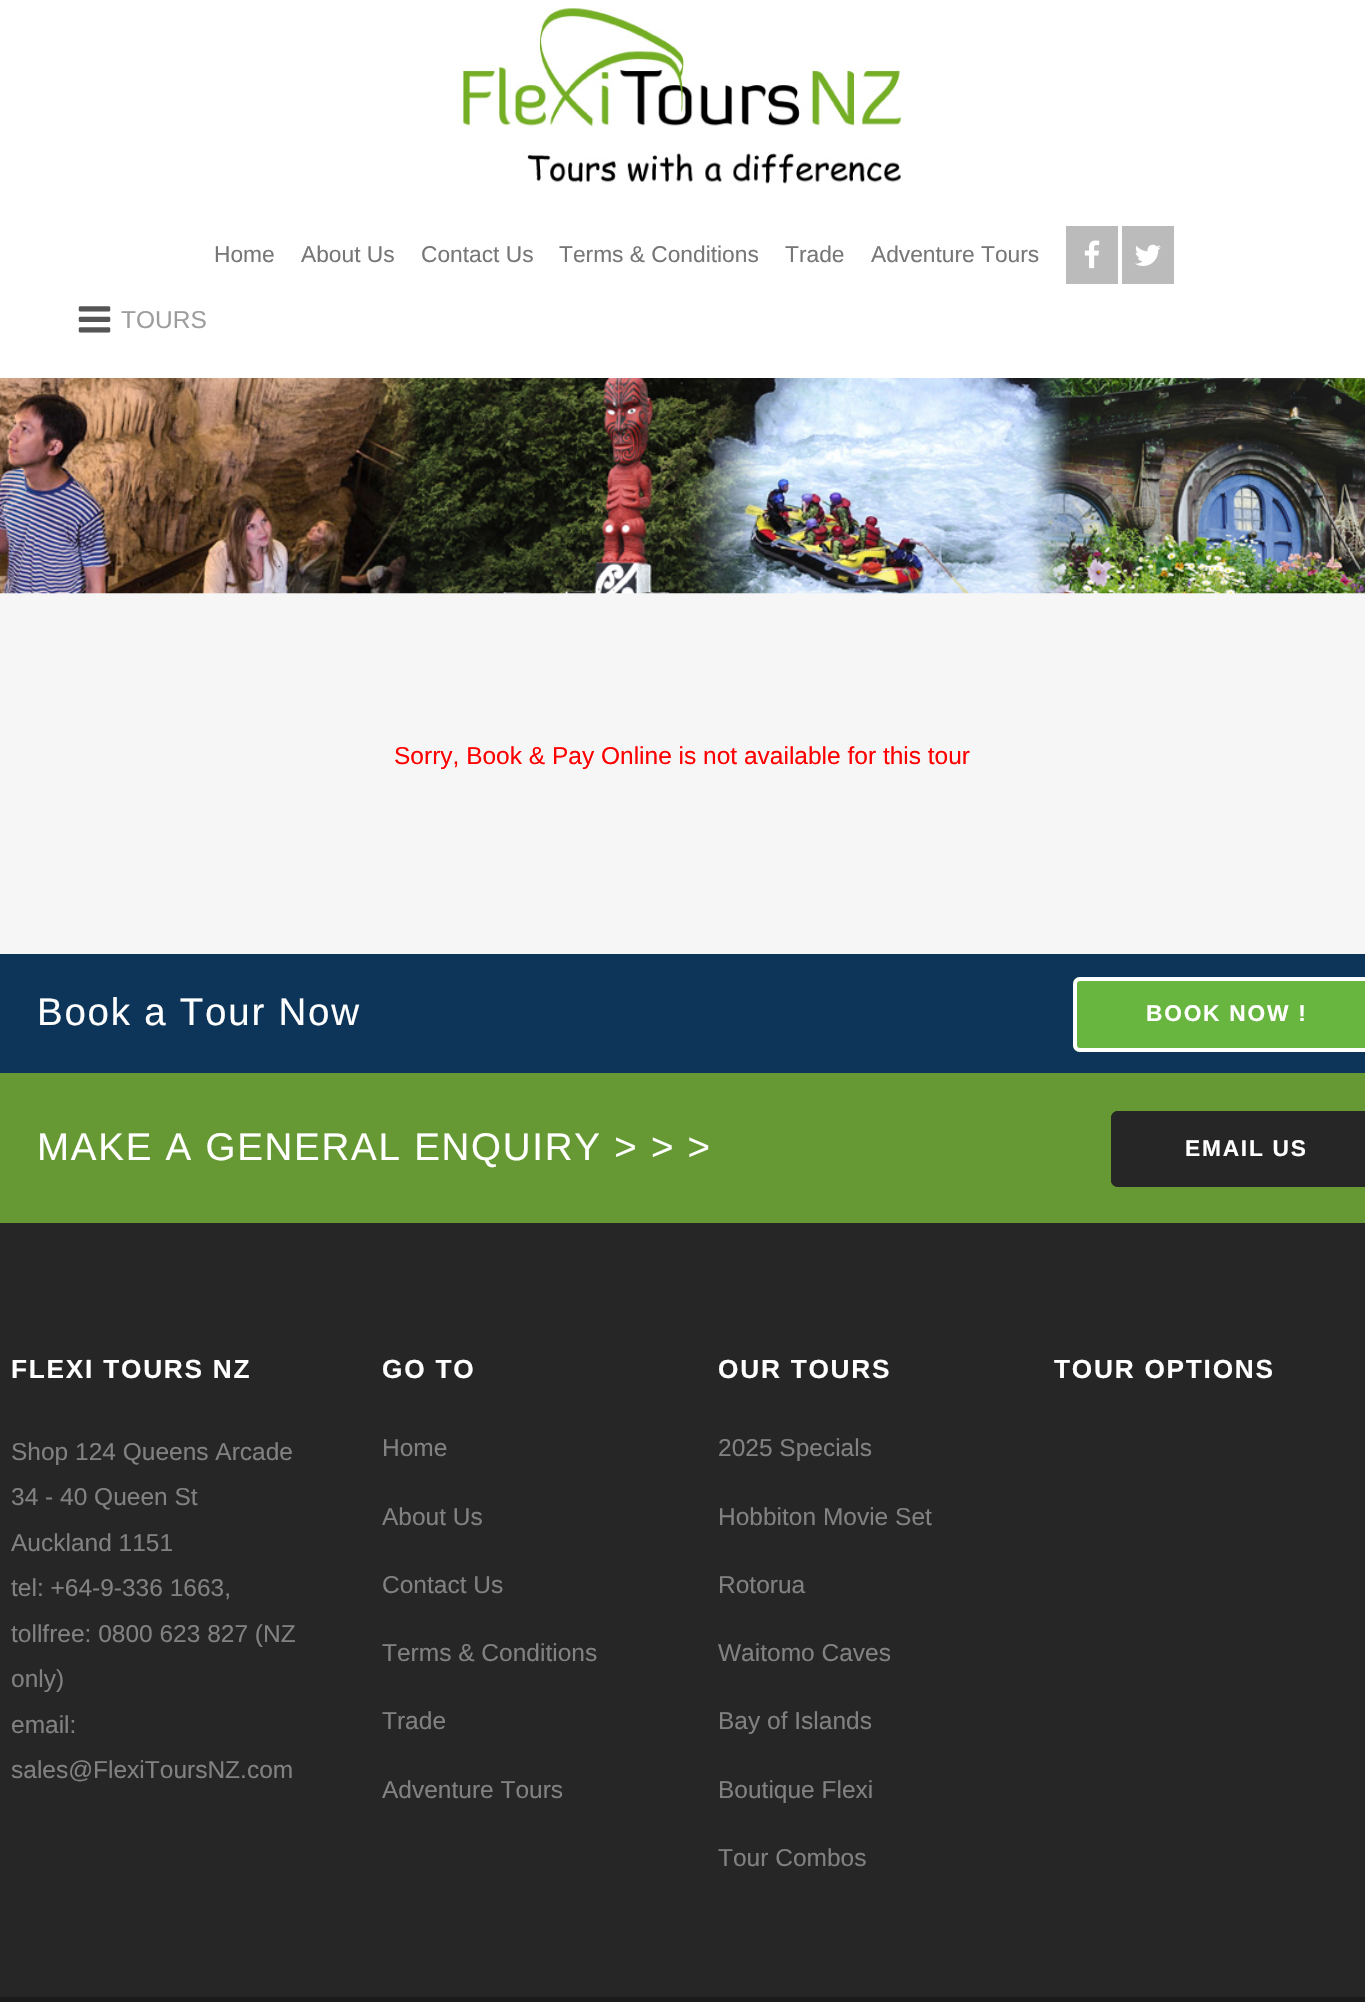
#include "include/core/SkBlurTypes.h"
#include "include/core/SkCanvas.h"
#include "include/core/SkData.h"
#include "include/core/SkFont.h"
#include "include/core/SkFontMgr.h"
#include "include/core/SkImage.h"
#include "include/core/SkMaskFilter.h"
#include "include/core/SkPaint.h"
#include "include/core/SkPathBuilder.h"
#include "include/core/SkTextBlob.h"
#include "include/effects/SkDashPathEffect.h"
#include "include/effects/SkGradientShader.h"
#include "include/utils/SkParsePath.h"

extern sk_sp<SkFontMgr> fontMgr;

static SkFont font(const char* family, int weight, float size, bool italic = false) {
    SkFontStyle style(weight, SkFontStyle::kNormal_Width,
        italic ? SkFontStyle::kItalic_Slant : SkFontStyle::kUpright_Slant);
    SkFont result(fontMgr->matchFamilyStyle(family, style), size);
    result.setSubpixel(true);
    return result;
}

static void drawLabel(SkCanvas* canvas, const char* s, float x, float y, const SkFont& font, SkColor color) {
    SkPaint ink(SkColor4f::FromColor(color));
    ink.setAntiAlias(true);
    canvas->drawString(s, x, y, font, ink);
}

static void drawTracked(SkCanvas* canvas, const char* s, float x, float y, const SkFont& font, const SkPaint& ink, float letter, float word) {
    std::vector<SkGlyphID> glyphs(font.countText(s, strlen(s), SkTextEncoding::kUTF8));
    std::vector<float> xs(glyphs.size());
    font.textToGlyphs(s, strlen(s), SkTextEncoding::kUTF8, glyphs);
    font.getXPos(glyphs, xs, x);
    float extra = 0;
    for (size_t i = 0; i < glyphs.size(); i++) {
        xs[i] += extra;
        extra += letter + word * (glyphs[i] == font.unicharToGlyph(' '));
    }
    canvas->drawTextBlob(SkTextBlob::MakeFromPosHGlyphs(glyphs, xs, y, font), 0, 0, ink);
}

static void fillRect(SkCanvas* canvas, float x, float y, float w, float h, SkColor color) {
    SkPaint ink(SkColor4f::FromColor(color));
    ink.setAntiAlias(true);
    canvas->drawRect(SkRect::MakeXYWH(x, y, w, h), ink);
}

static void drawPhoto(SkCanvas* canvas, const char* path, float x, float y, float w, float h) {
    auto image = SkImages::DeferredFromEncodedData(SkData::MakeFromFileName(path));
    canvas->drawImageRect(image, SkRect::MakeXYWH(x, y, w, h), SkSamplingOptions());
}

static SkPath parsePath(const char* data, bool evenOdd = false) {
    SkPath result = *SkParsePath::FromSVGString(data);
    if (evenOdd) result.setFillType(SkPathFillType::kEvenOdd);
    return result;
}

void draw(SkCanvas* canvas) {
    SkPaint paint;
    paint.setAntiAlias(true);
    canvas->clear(0xFFF6F6F6);
    fillRect(canvas, 0, 0, 1365, 378, 0xFFFFFFFF);
    drawPhoto(canvas, "assets/img1.png", 462, 8, 440, 176);
    SkFont font1 = font("Liberation Sans", 400, 22.75f);
    drawLabel(canvas, "Home", 214, 262, font1, 0xFF777777);
    drawLabel(canvas, "About Us", 301, 262, font1, 0xFF777777);
    drawLabel(canvas, "Contact Us", 421, 262, font1, 0xFF777777);
    drawLabel(canvas, "Terms & Conditions", 559, 262, font1, 0xFF777777);
    drawLabel(canvas, "Trade", 785, 262, font1, 0xFF777777);
    drawLabel(canvas, "Adventure Tours", 871, 262, font1, 0xFF777777);
    fillRect(canvas, 1066, 226, 52, 58, 0xFFBBBBBB);
    drawPhoto(canvas, "assets/img2.png", 1084, 240, 16, 29);
    fillRect(canvas, 1122, 226, 52, 58, 0xFFBBBBBB);
    drawPhoto(canvas, "assets/img3.png", 1135, 244, 26, 22);
    drawPhoto(canvas, "assets/img4.png", 78, 306, 33, 27);
    SkFont font2 = font("Liberation Sans", 400, 24.5f);
    drawLabel(canvas, "TOURS", 121, 328, font2, 0xFF9D9D9D);
    drawPhoto(canvas, "assets/img5.png", 0, 378, 1365, 216);
    drawLabel(canvas, "Sorry, Book & Pay Online is not available for this tour", 394, 764, font2, 0xFFFF0000);
    fillRect(canvas, 0, 954, 1365, 119, 0xFF0D3559);
    SkFont font3 = font("Liberation Sans", 400, 38.5f);
    paint.setColor(0xFFFFFFFF);
    drawTracked(canvas, "Book a Tour Now", 37, 1025, font3, paint, 1.75f, 0);
    paint.setColor(0xFF68B63F);
    canvas->drawPath(parsePath("M1080 977H1365V1052H1080C1076 1052 1073 1049 1073 1045V984C1073 980 1076 977 1080 977Z"), paint);
    paint.setStroke(true);
    paint.setStrokeWidth(4);
    paint.setColor(0xFFFFFFFF);
    canvas->drawRoundRect(SkRect::MakeXYWH(1075, 979, 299, 71), 5, 5, paint);
    SkFont font4 = font("Liberation Sans", 700, 22.75f);
    paint.setStroke(false);
    drawTracked(canvas, "BOOK NOW !", 1146, 1021, font4, paint, 1.75f, 0);
    fillRect(canvas, 0, 1073, 1365, 150, 0xFF669933);
    drawTracked(canvas, "MAKE A GENERAL ENQUIRY > > >", 37, 1160, font3, paint, 1.75f, 0);
    paint.setColor(0xFF262626);
    canvas->drawPath(parsePath("M1118 1111H1365V1187H1118C1114 1187 1111 1184 1111 1180V1118C1111 1114 1114 1111 1118 1111Z"), paint);
    paint.setStroke(true);
    canvas->drawRoundRect(SkRect::MakeXYWH(1113, 1113, 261, 72), 5, 5, paint);
    paint.setStroke(false);
    paint.setColor(0xFFFFFFFF);
    drawTracked(canvas, "EMAIL US", 1185, 1156, font4, paint, 1.75f, 0);
    fillRect(canvas, 0, 1223, 1365, 774, 0xFF262626);
    SkFont font5 = font("Liberation Sans", 700, 26.25f);
    drawTracked(canvas, "FLEXI TOURS NZ", 11, 1378, font5, paint, 1.75f, 0);
    drawLabel(canvas, "Shop 124 Queens Arcade", 11, 1460, font2, 0xFF818181);
    drawLabel(canvas, "34 - 40 Queen St", 11, 1505, font2, 0xFF818181);
    drawLabel(canvas, "Auckland 1151", 11, 1551, font2, 0xFF818181);
    drawLabel(canvas, "tel: +64-9-336 1663,", 11, 1596, font2, 0xFF818181);
    drawLabel(canvas, "tollfree: 0800 623 827 (NZ", 11, 1642, font2, 0xFF818181);
    drawLabel(canvas, "only)", 11, 1687, font2, 0xFF818181);
    drawLabel(canvas, "email:", 11, 1733, font2, 0xFF818181);
    drawLabel(canvas, "sales@FlexiToursNZ.com", 11, 1778, font2, 0xFF818181);
    drawTracked(canvas, "GO TO", 382, 1378, font5, paint, 1.75f, 0);
    drawLabel(canvas, "Home", 382, 1456, font2, 0xFF818181);
    drawLabel(canvas, "About Us", 382, 1525, font2, 0xFF818181);
    drawLabel(canvas, "Contact Us", 382, 1593, font2, 0xFF818181);
    drawLabel(canvas, "Terms & Conditions", 382, 1661, font2, 0xFF818181);
    drawLabel(canvas, "Trade", 382, 1729, font2, 0xFF818181);
    drawLabel(canvas, "Adventure Tours", 382, 1798, font2, 0xFF818181);
    drawTracked(canvas, "OUR TOURS", 718, 1378, font5, paint, 1.75f, 0);
    drawLabel(canvas, "2025 Specials", 718, 1456, font2, 0xFF818181);
    drawLabel(canvas, "Hobbiton Movie Set", 718, 1525, font2, 0xFF818181);
    drawLabel(canvas, "Rotorua", 718, 1593, font2, 0xFF818181);
    drawLabel(canvas, "Waitomo Caves", 718, 1661, font2, 0xFF818181);
    drawLabel(canvas, "Bay of Islands", 718, 1729, font2, 0xFF818181);
    drawLabel(canvas, "Boutique Flexi", 718, 1798, font2, 0xFF818181);
    drawLabel(canvas, "Tour Combos", 718, 1866, font2, 0xFF818181);
    drawTracked(canvas, "TOUR OPTIONS", 1054, 1378, font5, paint, 1.75f, 0);
    fillRect(canvas, 0, 1997, 1365, 5, 0xFF1B1B1B);
}
